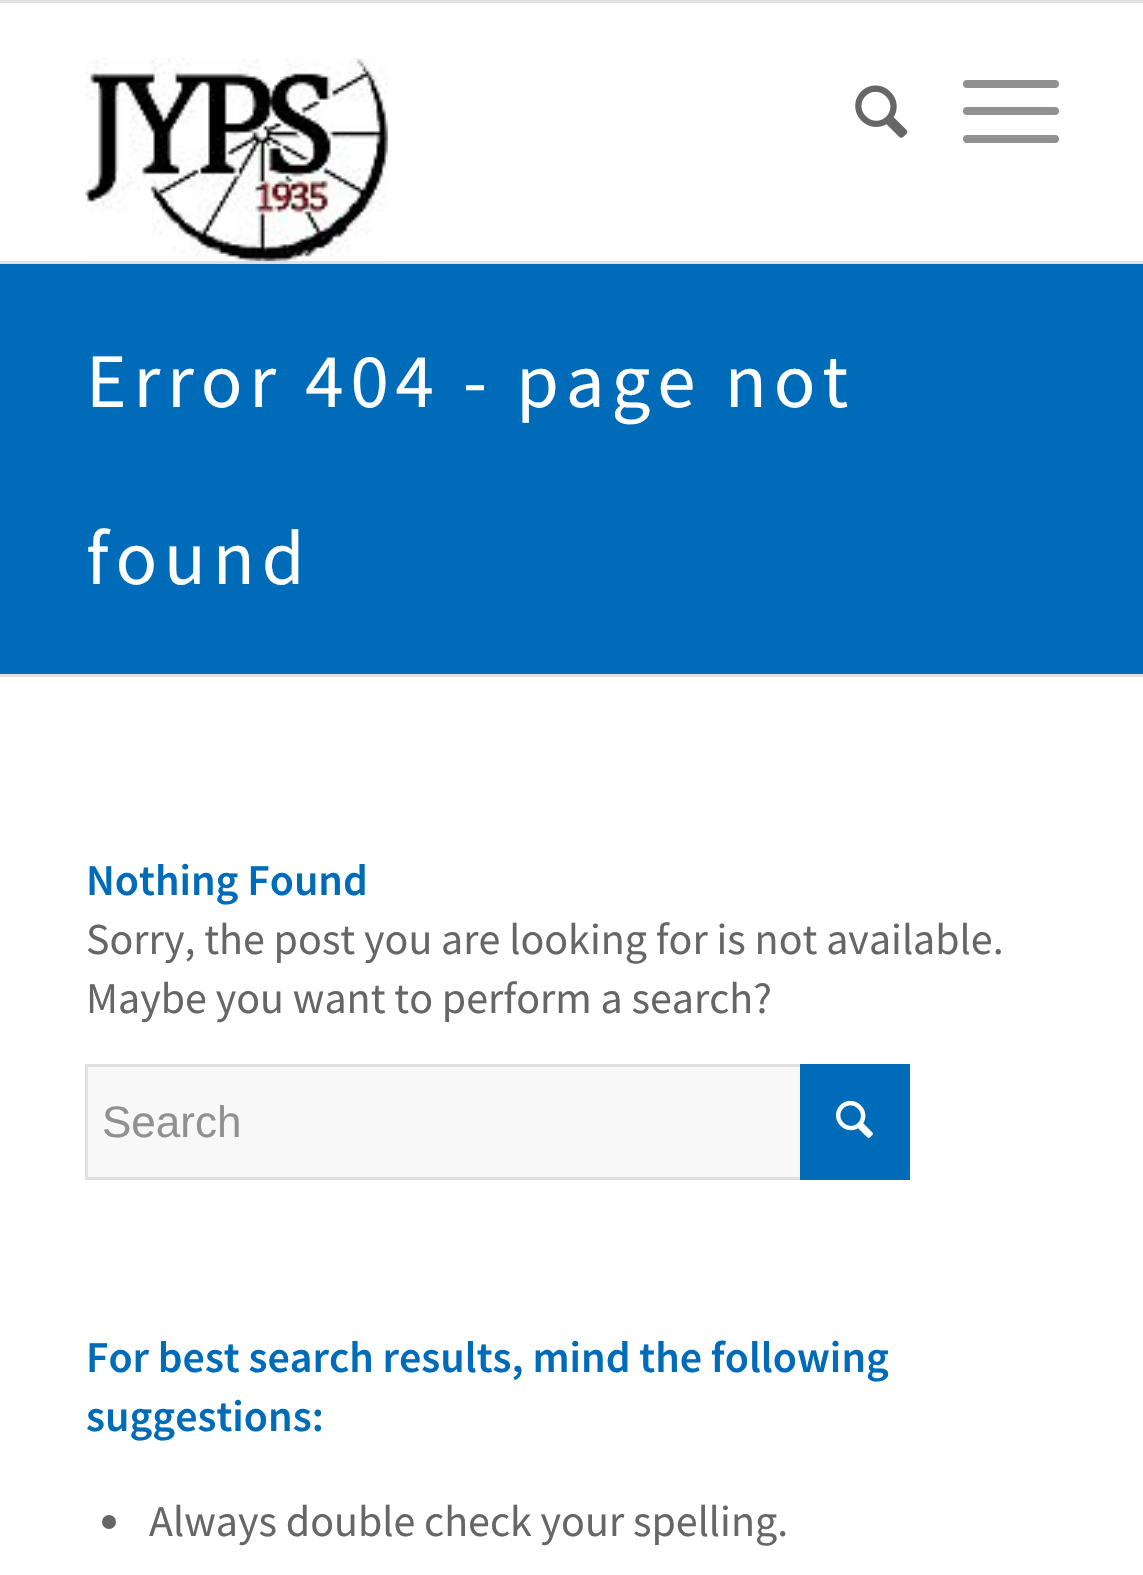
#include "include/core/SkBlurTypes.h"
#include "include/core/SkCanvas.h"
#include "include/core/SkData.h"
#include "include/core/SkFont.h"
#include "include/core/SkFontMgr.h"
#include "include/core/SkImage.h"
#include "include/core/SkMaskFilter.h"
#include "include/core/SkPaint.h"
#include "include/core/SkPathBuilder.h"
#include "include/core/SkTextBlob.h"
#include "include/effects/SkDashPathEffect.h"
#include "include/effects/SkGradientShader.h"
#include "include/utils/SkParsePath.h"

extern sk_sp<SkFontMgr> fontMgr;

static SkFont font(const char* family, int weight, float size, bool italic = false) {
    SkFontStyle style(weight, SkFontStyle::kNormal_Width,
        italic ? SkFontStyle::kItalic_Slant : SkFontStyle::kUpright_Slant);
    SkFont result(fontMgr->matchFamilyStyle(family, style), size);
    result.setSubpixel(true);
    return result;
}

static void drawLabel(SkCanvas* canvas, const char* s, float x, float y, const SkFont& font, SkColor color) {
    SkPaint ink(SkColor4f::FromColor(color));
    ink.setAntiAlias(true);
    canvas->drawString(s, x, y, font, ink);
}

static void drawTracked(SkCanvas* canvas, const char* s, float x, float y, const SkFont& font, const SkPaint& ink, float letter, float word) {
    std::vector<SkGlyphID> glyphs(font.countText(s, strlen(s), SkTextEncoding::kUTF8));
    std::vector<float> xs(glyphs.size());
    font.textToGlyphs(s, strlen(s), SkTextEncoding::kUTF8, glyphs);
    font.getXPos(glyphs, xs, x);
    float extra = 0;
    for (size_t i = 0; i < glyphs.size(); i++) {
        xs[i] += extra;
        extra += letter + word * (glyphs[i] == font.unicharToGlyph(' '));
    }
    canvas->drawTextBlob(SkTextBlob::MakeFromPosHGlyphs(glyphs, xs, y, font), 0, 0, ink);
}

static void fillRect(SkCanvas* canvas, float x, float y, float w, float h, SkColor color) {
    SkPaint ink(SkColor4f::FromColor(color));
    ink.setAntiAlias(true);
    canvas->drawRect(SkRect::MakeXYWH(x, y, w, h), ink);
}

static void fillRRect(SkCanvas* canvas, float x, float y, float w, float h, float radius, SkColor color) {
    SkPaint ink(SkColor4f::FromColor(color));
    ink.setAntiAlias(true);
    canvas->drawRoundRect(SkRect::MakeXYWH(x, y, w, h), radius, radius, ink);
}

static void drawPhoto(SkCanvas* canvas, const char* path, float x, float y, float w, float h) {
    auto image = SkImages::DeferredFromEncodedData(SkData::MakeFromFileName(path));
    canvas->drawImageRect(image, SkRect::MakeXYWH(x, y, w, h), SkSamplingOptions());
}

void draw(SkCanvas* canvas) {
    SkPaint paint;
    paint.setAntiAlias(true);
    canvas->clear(0xFFFFFFFF);
    fillRect(canvas, 0, 0, 1143, 3, 0xFFE1E1E1);
    fillRect(canvas, 0, 261, 1143, 3, 0xFFE1E1E1);
    drawPhoto(canvas, "assets/img1.png", 85, 58, 303, 204);
    drawPhoto(canvas, "assets/img2.png", 855, 85, 53, 53);
    fillRRect(canvas, 963, 107, 96, 8, 4, 0xFF919191);
    fillRRect(canvas, 963, 80, 96, 8, 4, 0xFF919191);
    fillRRect(canvas, 963, 135, 96, 8, 4, 0xFF919191);
    fillRect(canvas, 0, 264, 1143, 410, 0xFF006CB9);
    SkFont font1 = font("Source Sans Pro", 400, 77);
    paint.setColor(0xFFFFFFFF);
    drawTracked(canvas, "Error 404 - page not", 86, 407, font1, paint, 6.9f, 0);
    drawTracked(canvas, "found", 86, 584, font1, paint, 6.9f, 0);
    fillRect(canvas, 0, 674, 1143, 3, 0xFFE1E1E1);
    SkFont font2 = font("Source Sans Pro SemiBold", 600, 44);
    drawLabel(canvas, "Nothing Found", 86, 895, font2, 0xFF006CB9);
    SkFont font3 = font("Source Sans Pro", 400, 44);
    drawLabel(canvas, "Sorry, the post you are looking for is not available.", 86, 954, font3, 0xFF666666);
    drawLabel(canvas, "Maybe you want to perform a search?", 86, 1013, font3, 0xFF666666);
    fillRect(canvas, 88, 1067, 712, 110, 0xFFF8F8F8);
    paint.setStroke(true);
    paint.setStrokeWidth(3);
    paint.setColor(0xFFE1E1E1);
    canvas->drawRect(SkRect::MakeXYWH(86.5f, 1065.5f, 822, 113), paint);
    SkFont font4 = font("Liberation Sans", 400, 44);
    drawLabel(canvas, "Search", 102, 1137, font4, 0xFF919191);
    fillRect(canvas, 800, 1064, 110, 116, 0xFF006CB9);
    drawPhoto(canvas, "assets/img3.png", 836, 1100, 37, 38);
    drawLabel(canvas, "For best search results, mind the following", 86, 1372, font2, 0xFF006CB9);
    drawLabel(canvas, "suggestions:", 86, 1431, font2, 0xFF006CB9);
    paint.setStroke(false);
    paint.setColor(0xFF666666);
    canvas->drawCircle(109, 1522, 7, paint);
    drawLabel(canvas, "Always double check your spelling.", 149, 1536, font3, 0xFF666666);
}
